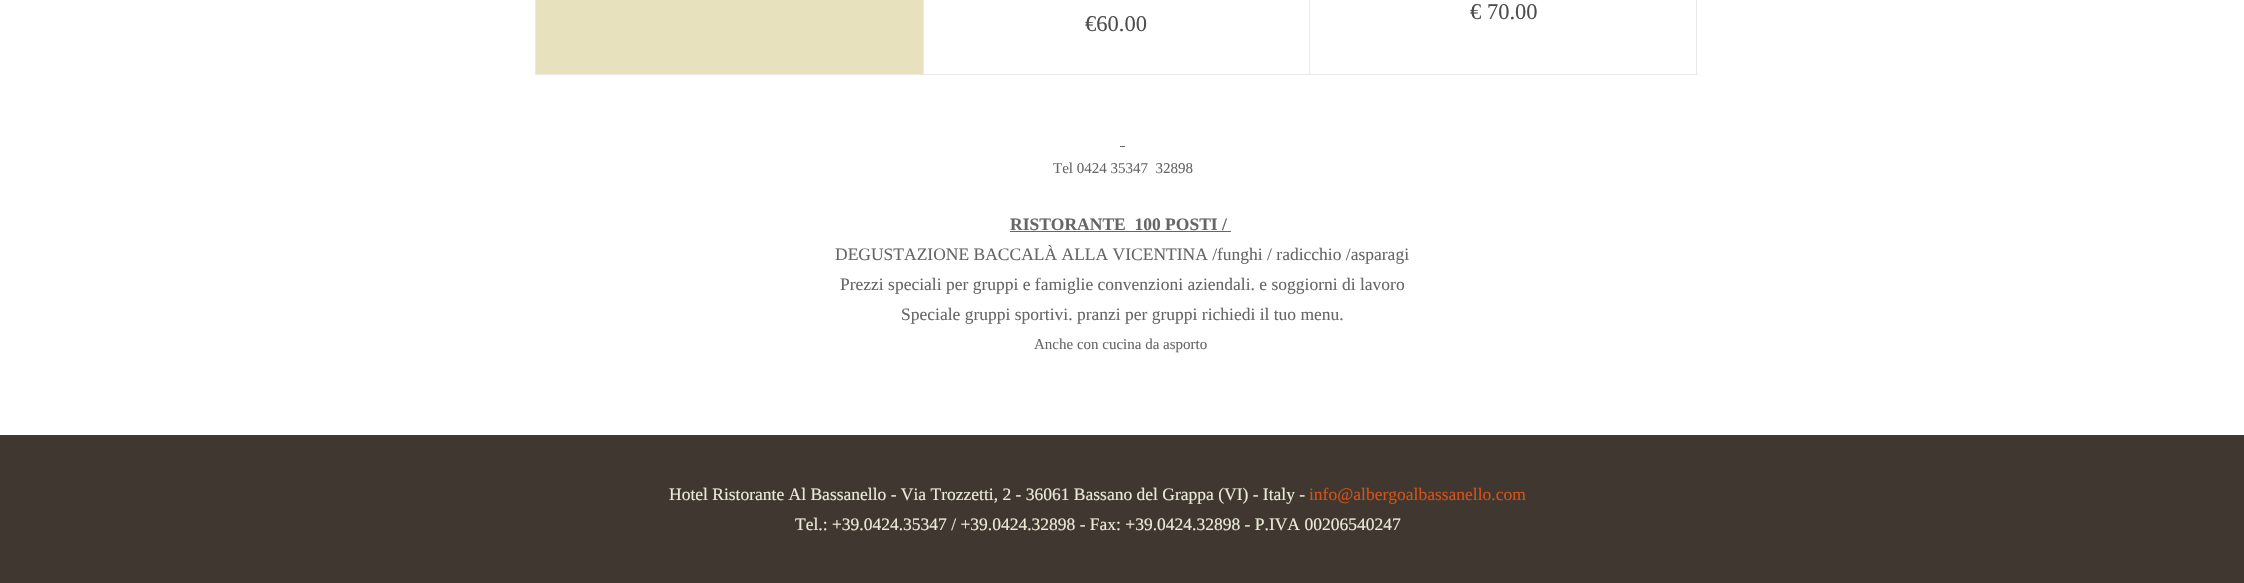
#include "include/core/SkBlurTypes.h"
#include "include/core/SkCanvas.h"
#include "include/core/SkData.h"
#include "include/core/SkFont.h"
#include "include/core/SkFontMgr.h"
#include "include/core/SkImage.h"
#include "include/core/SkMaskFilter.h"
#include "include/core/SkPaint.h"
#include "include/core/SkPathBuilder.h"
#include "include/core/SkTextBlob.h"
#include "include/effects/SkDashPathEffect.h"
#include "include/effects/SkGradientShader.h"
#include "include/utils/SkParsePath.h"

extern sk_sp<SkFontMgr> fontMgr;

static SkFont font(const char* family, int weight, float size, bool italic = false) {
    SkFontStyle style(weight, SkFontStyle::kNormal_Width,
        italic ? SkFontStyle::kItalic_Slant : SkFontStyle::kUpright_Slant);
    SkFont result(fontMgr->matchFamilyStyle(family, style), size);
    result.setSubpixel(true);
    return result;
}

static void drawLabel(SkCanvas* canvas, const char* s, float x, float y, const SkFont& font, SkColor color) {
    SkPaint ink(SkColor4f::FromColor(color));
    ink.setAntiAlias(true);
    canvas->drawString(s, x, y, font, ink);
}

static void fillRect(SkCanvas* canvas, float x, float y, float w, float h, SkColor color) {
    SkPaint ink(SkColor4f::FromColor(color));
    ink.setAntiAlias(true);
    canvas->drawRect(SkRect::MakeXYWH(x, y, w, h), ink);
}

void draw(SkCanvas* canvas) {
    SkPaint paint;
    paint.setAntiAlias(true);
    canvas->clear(0xFFFFFFFF);
    fillRect(canvas, 536, 0, 387, 74, 0xFFE8E1BD);
    fillRect(canvas, 1696, 0, 1, 75, 0xFFEBE8E8);
    fillRect(canvas, 1309, 74, 389, 1, 0xFFEBE8E8);
    fillRect(canvas, 1309, 0, 1, 75, 0xFFEBE8E8);
    fillRect(canvas, 923, 74, 387, 1, 0xFFEBE8E8);
    fillRect(canvas, 923, 0, 1, 75, 0xFFEBE8E8);
    fillRect(canvas, 535, 74, 389, 1, 0xFFEBE8E8);
    fillRect(canvas, 535, 0, 1, 75, 0xFFEBE8E8);
    SkFont font1 = font("Liberation Serif", 400, 22.5f);
    drawLabel(canvas, "€ 70.00", 1470, 19, font1, 0xFF4D4D4D);
    drawLabel(canvas, "€60.00", 1085, 31, font1, 0xFF4D4D4D);
    fillRect(canvas, 1120, 146, 5, 1, 0xFF666666);
    SkFont font2 = font("Liberation Serif", 400, 15);
    drawLabel(canvas, "Tel 0424 35347  32898", 1053, 173, font2, 0xFF666666);
    SkFont font3 = font("Liberation Serif", 700, 17.5f);
    drawLabel(canvas, "RISTORANTE  100 POSTI /", 1010, 230, font3, 0xFF666666);
    fillRect(canvas, 1010, 231, 221, 1, 0xFF666666);
    SkFont font4 = font("Liberation Serif", 400, 17.5f);
    drawLabel(canvas, "DEGUSTAZIONE BACCALÀ ALLA VICENTINA /funghi / radicchio /asparagi", 835, 260, font4, 0xFF666666);
    drawLabel(canvas, "Prezzi speciali per gruppi e famiglie convenzioni aziendali. e soggiorni di lavoro", 840, 290, font4, 0xFF666666);
    drawLabel(canvas, "Speciale gruppi sportivi. pranzi per gruppi richiedi il tuo menu.", 901, 320, font4, 0xFF666666);
    drawLabel(canvas, "Anche con cucina da asporto", 1034, 349, font2, 0xFF666666);
    fillRect(canvas, 0, 436, 2244, 147, 0xFF403830);
    fillRect(canvas, 0, 435, 2244, 1, 0xFF453C34);
    drawLabel(canvas, "Hotel Ristorante Al Bassanello - Via Trozzetti, 2 - 36061 Bassano del Grappa (VI) - Italy -", 669, 500, font4, 0xFFEBEAD9);
    drawLabel(canvas, "info@albergoalbassanello.com", 1309, 500, font4, 0xFFD65218);
    drawLabel(canvas, "Tel.: +39.0424.35347 / +39.0424.32898 - Fax: +39.0424.32898 - P.IVA 00206540247", 795, 530, font4, 0xFFEBEAD9);
}
